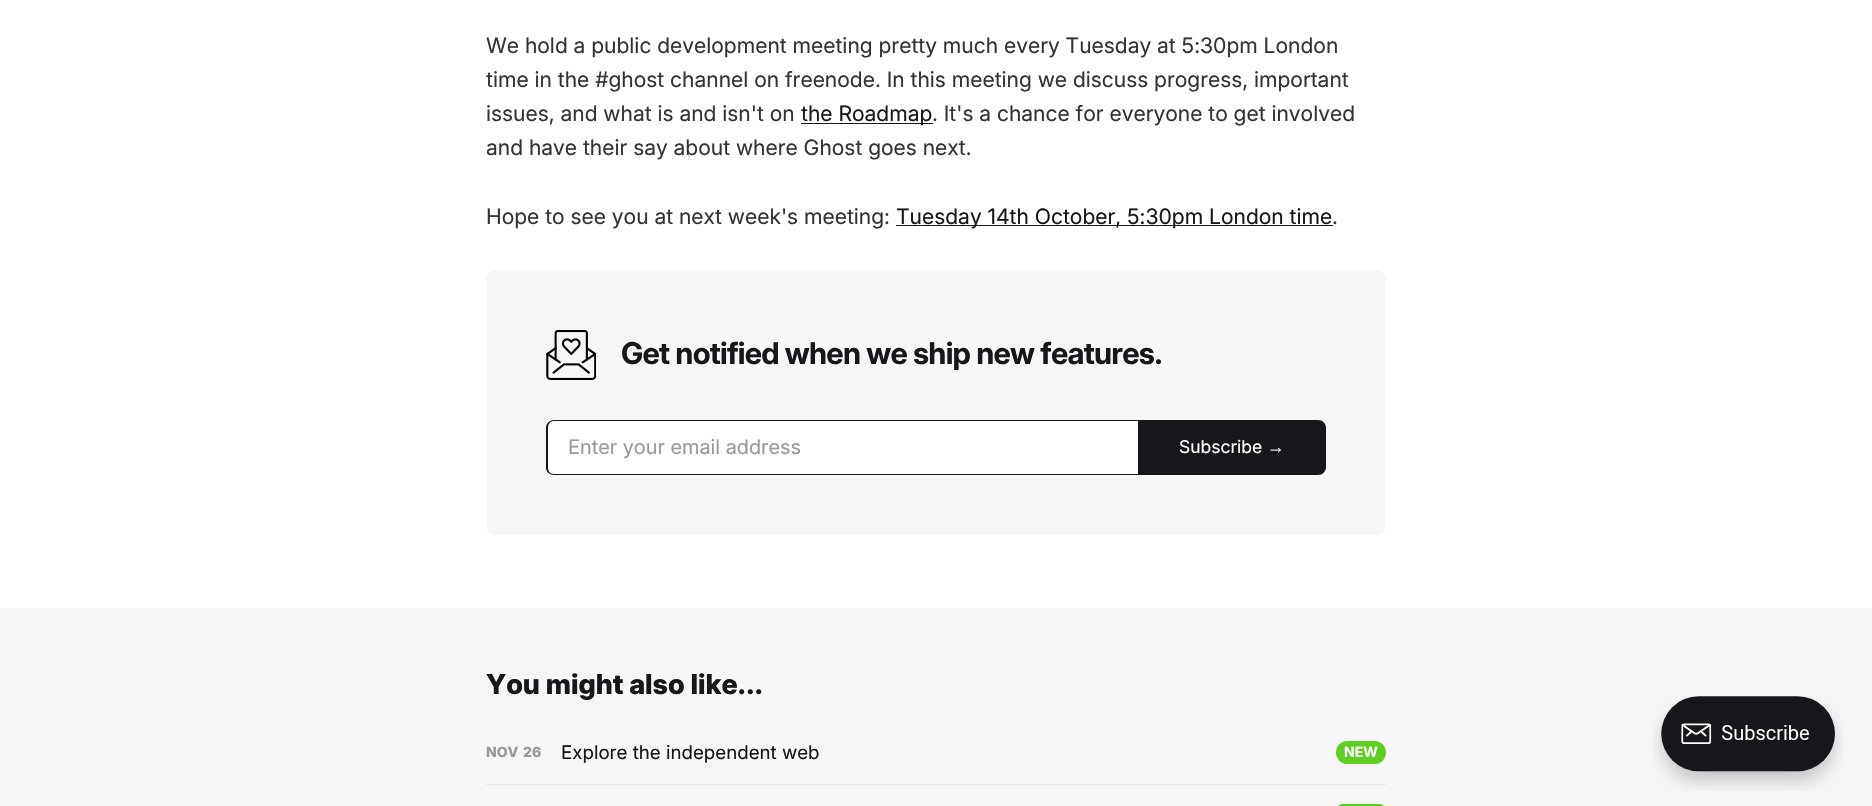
#include "include/core/SkBlurTypes.h"
#include "include/core/SkCanvas.h"
#include "include/core/SkData.h"
#include "include/core/SkFont.h"
#include "include/core/SkFontMgr.h"
#include "include/core/SkImage.h"
#include "include/core/SkMaskFilter.h"
#include "include/core/SkPaint.h"
#include "include/core/SkPathBuilder.h"
#include "include/core/SkTextBlob.h"
#include "include/effects/SkDashPathEffect.h"
#include "include/effects/SkGradientShader.h"
#include "include/utils/SkParsePath.h"

extern sk_sp<SkFontMgr> fontMgr;

static SkFont font(const char* family, int weight, float size, bool italic = false) {
    SkFontStyle style(weight, SkFontStyle::kNormal_Width,
        italic ? SkFontStyle::kItalic_Slant : SkFontStyle::kUpright_Slant);
    SkFont result(fontMgr->matchFamilyStyle(family, style), size);
    result.setSubpixel(true);
    return result;
}

static void drawLabel(SkCanvas* canvas, const char* s, float x, float y, const SkFont& font, SkColor color) {
    SkPaint ink(SkColor4f::FromColor(color));
    ink.setAntiAlias(true);
    canvas->drawString(s, x, y, font, ink);
}

static void drawTracked(SkCanvas* canvas, const char* s, float x, float y, const SkFont& font, const SkPaint& ink, float letter, float word) {
    std::vector<SkGlyphID> glyphs(font.countText(s, strlen(s), SkTextEncoding::kUTF8));
    std::vector<float> xs(glyphs.size());
    font.textToGlyphs(s, strlen(s), SkTextEncoding::kUTF8, glyphs);
    font.getXPos(glyphs, xs, x);
    float extra = 0;
    for (size_t i = 0; i < glyphs.size(); i++) {
        xs[i] += extra;
        extra += letter + word * (glyphs[i] == font.unicharToGlyph(' '));
    }
    canvas->drawTextBlob(SkTextBlob::MakeFromPosHGlyphs(glyphs, xs, y, font), 0, 0, ink);
}

static void fillRect(SkCanvas* canvas, float x, float y, float w, float h, SkColor color) {
    SkPaint ink(SkColor4f::FromColor(color));
    ink.setAntiAlias(true);
    canvas->drawRect(SkRect::MakeXYWH(x, y, w, h), ink);
}

static void fillRRect(SkCanvas* canvas, float x, float y, float w, float h, float radius, SkColor color) {
    SkPaint ink(SkColor4f::FromColor(color));
    ink.setAntiAlias(true);
    canvas->drawRoundRect(SkRect::MakeXYWH(x, y, w, h), radius, radius, ink);
}

static void drawPhoto(SkCanvas* canvas, const char* path, float x, float y, float w, float h) {
    auto image = SkImages::DeferredFromEncodedData(SkData::MakeFromFileName(path));
    canvas->drawImageRect(image, SkRect::MakeXYWH(x, y, w, h), SkSamplingOptions());
}

static SkPath parsePath(const char* data, bool evenOdd = false) {
    SkPath result = *SkParsePath::FromSVGString(data);
    if (evenOdd) result.setFillType(SkPathFillType::kEvenOdd);
    return result;
}

void draw(SkCanvas* canvas) {
    SkPaint paint;
    paint.setAntiAlias(true);
    canvas->clear(0xFFFFFFFF);
    SkFont font1 = font("Inter", 400, 21.25f);
    drawLabel(canvas, "We hold a public development meeting pretty much every Tuesday at 5:30pm London", 486, 53, font1, 0xFF333333);
    drawLabel(canvas, "time in the #ghost channel on freenode. In this meeting we discuss progress, important", 486, 87, font1, 0xFF333333);
    drawLabel(canvas, "issues, and what is and isn't on", 486, 121, font1, 0xFF333333);
    fillRect(canvas, 801, 123, 132, 1, 0xFF15171A);
    drawLabel(canvas, "the Roadmap", 801, 121, font1, 0xFF15171A);
    drawLabel(canvas, ". It's a chance for everyone to get involved", 932, 121, font1, 0xFF333333);
    drawLabel(canvas, "and have their say about where Ghost goes next.", 486, 155, font1, 0xFF333333);
    drawLabel(canvas, "Hope to see you at next week's meeting:", 486, 224, font1, 0xFF333333);
    fillRect(canvas, 896, 225, 437, 1, 0xFF15171A);
    drawLabel(canvas, "Tuesday 14th October, 5:30pm London time", 896, 224, font1, 0xFF15171A);
    drawLabel(canvas, ".", 1332, 224, font1, 0xFF333333);
    fillRRect(canvas, 486, 270, 900, 265, 10, 0xFFF6F6F6);
    drawPhoto(canvas, "assets/img1.png", 546, 330, 50, 50);
    SkFont font2 = font("Inter", 700, 30);
    paint.setColor(0xFF15171A);
    drawTracked(canvas, "Get notified when we ship new features.", 621, 364, font2, paint, -0.75f, 0);
    paint.setColor(0xFFFFFFFF);
    canvas->drawPath(parsePath("M554 421H1138V474H554C550.5 474 548 471.5 548 468V427C548 423.5 550.5 421 554 421Z"), paint);
    paint.setColor(0xFF15171A);
    canvas->drawPath(parsePath("M554 420H1138V475H554C550 475 546 472 546 468V428C546 423 550 420 554 420ZM554 421H1138V474H554C550 474 548 471 548 468V428C548 424 550 421 554 421Z", true), paint);
    SkFont font3 = font("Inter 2", 400, 20);
    drawLabel(canvas, "Enter your email address", 568, 454, font3, 0xFF999999);
    canvas->drawPath(parsePath("M1138 420H1318C1322.5 420 1326 423.5 1326 428V467C1326 471.5 1322.5 475 1318 475H1138Z"), paint);
    SkFont font4 = font("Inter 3", 400, 17.5f);
    drawLabel(canvas, "Subscribe", 1179, 453, font4, 0xFFFFFFFF);
    SkFont font5 = font("Liberation Sans", 400, 17.5f);
    drawLabel(canvas, "→", 1267, 453, font5, 0xFFFFFFFF);
    fillRect(canvas, 0, 608, 1872, 198, 0xFFF6F6F6);
    SkFont font6 = font("Inter", 800, 27.5f);
    drawLabel(canvas, "You might also like...", 486, 694, font6, 0xFF15171A);
    SkFont font7 = font("Inter 2", 800, 14);
    drawLabel(canvas, "NOV", 486, 757, font7, 0xFF999999);
    drawLabel(canvas, "26", 523, 757, font7, 0xFF999999);
    SkFont font8 = font("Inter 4", 400, 18.75f);
    drawLabel(canvas, "Explore the independent web", 561, 759, font8, 0xFF15171A);
    fillRRect(canvas, 1336, 741, 50, 23, 11.5f, 0xFF5DCF1F);
    SkFont font9 = font("Inter 2", 700, 14);
    drawLabel(canvas, "NEW", 1344, 757, font9, 0xFFFFFFFF);
    fillRect(canvas, 486, 784, 900, 1, 0xFFE6E6E6);
    fillRRect(canvas, 1336, 804, 50, 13, 11, 0xFF5DCF1F);
    drawPhoto(canvas, "assets/img2.png", 1652, 696, 192, 95);
}
